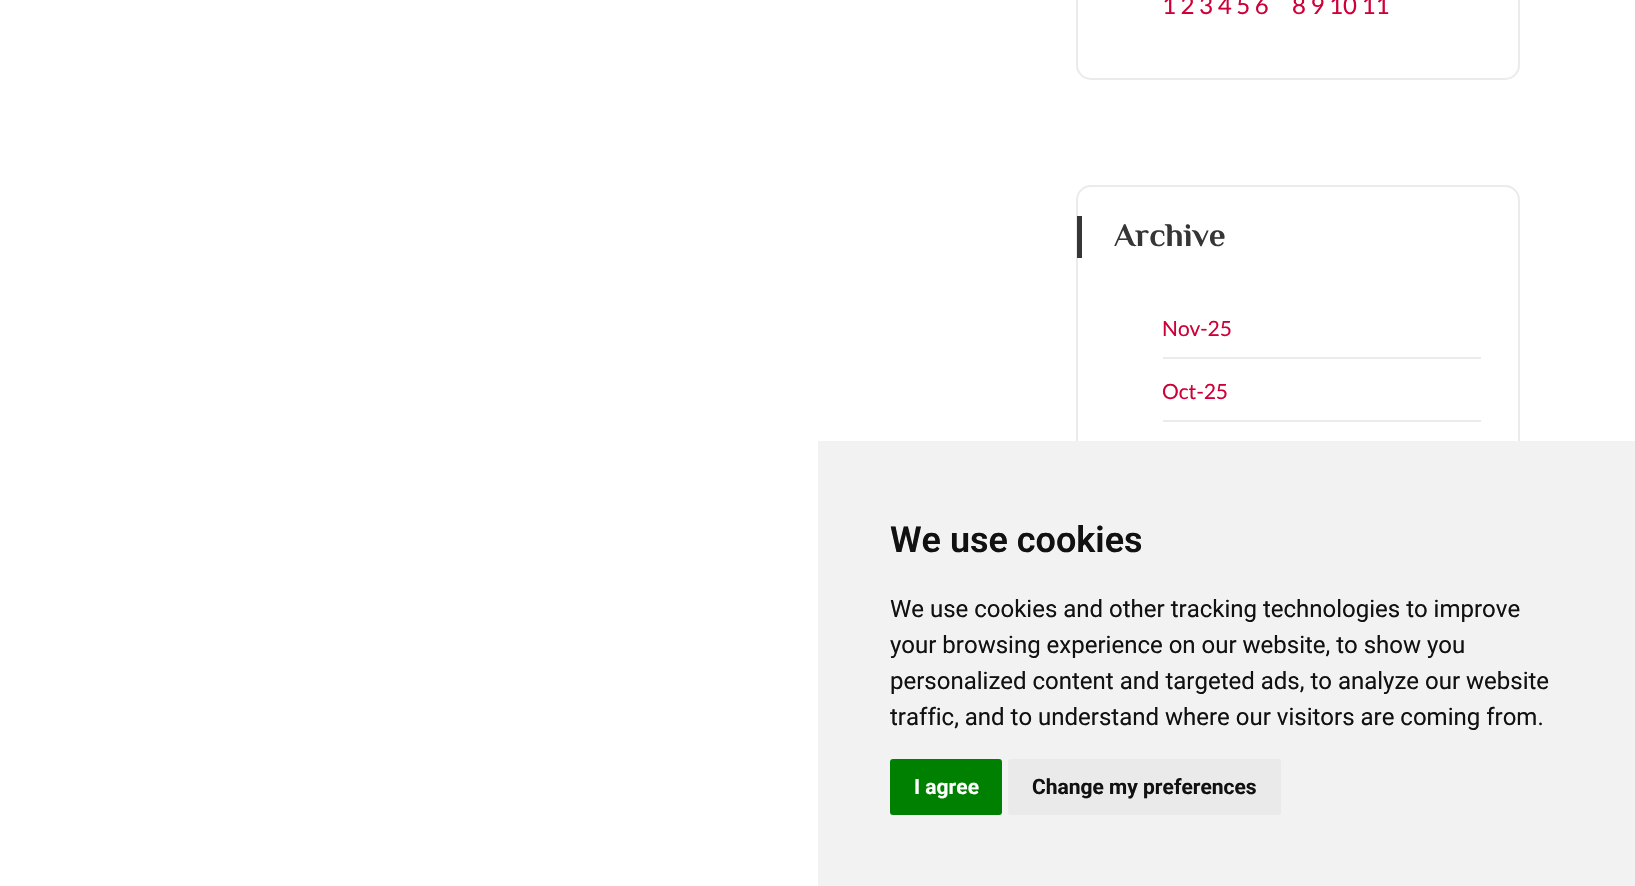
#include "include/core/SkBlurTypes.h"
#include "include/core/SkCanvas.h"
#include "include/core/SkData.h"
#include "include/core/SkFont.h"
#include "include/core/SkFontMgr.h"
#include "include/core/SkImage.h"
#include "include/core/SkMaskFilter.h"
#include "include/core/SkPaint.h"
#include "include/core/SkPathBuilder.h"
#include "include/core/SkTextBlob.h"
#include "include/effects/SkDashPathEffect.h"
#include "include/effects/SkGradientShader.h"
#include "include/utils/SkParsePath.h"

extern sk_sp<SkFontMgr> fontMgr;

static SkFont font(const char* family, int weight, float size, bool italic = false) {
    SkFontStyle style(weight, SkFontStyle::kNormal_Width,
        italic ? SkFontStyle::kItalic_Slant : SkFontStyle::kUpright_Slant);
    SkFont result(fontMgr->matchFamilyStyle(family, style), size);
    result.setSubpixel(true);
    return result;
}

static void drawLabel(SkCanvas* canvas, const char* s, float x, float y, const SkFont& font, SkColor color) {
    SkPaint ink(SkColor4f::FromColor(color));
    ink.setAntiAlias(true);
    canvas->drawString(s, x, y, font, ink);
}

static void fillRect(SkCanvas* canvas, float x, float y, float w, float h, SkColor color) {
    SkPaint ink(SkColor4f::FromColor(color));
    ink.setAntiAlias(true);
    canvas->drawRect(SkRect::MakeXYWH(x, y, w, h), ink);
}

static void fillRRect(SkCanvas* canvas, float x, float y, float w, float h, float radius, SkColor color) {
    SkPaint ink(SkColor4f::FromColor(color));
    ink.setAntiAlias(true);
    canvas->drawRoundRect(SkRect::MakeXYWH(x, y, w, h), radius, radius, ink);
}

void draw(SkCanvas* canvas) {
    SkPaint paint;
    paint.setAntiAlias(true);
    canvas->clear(0xFFFFFFFF);
    paint.setStroke(true);
    paint.setStrokeWidth(2);
    paint.setColor(0xFFEBEBEB);
    canvas->drawRoundRect(SkRect::MakeXYWH(1077, -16, 442, 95), 14, 14, paint);
    SkFont font1 = font("Lato", 400, 24);
    drawLabel(canvas, "1 2 3 4 5 6", 1162, 14, font1, 0xFFCE0037);
    drawLabel(canvas, "8 9 10 11", 1292, 14, font1, 0xFFCE0037);
    canvas->drawRoundRect(SkRect::MakeXYWH(1077, 186, 442, 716), 14, 14, paint);
    fillRect(canvas, 1077, 216, 5, 42, 0xFF363636);
    SkFont font2 = font("El Messiri", 700, 33);
    drawLabel(canvas, "Archive", 1114, 246, font2, 0xFF363636);
    fillRect(canvas, 1163, 357, 318, 2, 0xFFEBEBEB);
    SkFont font3 = font("Lato", 400, 21);
    drawLabel(canvas, "Nov-25", 1162, 336, font3, 0xFFCE0037);
    fillRect(canvas, 1163, 420, 318, 2, 0xFFEBEBEB);
    drawLabel(canvas, "Oct-25", 1162, 399, font3, 0xFFCE0037);
    fillRect(canvas, 818, 441, 817, 445, 0xFFF2F2F2);
    SkFont font4 = font("Roboto", 600, 36);
    drawLabel(canvas, "We use cookies", 890, 552, font4, 0xFF111111);
    SkFont font5 = font("Roboto", 400, 24);
    drawLabel(canvas, "We use cookies and other tracking technologies to improve", 890, 617, font5, 0xFF111111);
    drawLabel(canvas, "your browsing experience on our website, to show you", 890, 653, font5, 0xFF111111);
    drawLabel(canvas, "personalized content and targeted ads, to analyze our website", 890, 689, font5, 0xFF111111);
    drawLabel(canvas, "traffic, and to understand where our visitors are coming from.", 890, 725, font5, 0xFF111111);
    fillRRect(canvas, 890, 759, 112, 56, 3, 0xFF008000);
    SkFont font6 = font("Roboto", 700, 21);
    drawLabel(canvas, "I agree", 914, 794, font6, 0xFFFFFFFF);
    fillRRect(canvas, 1008, 759, 273, 56, 3, 0xFFEAEAEA);
    drawLabel(canvas, "Change my preferences", 1032, 794, font6, 0xFF111111);
}
